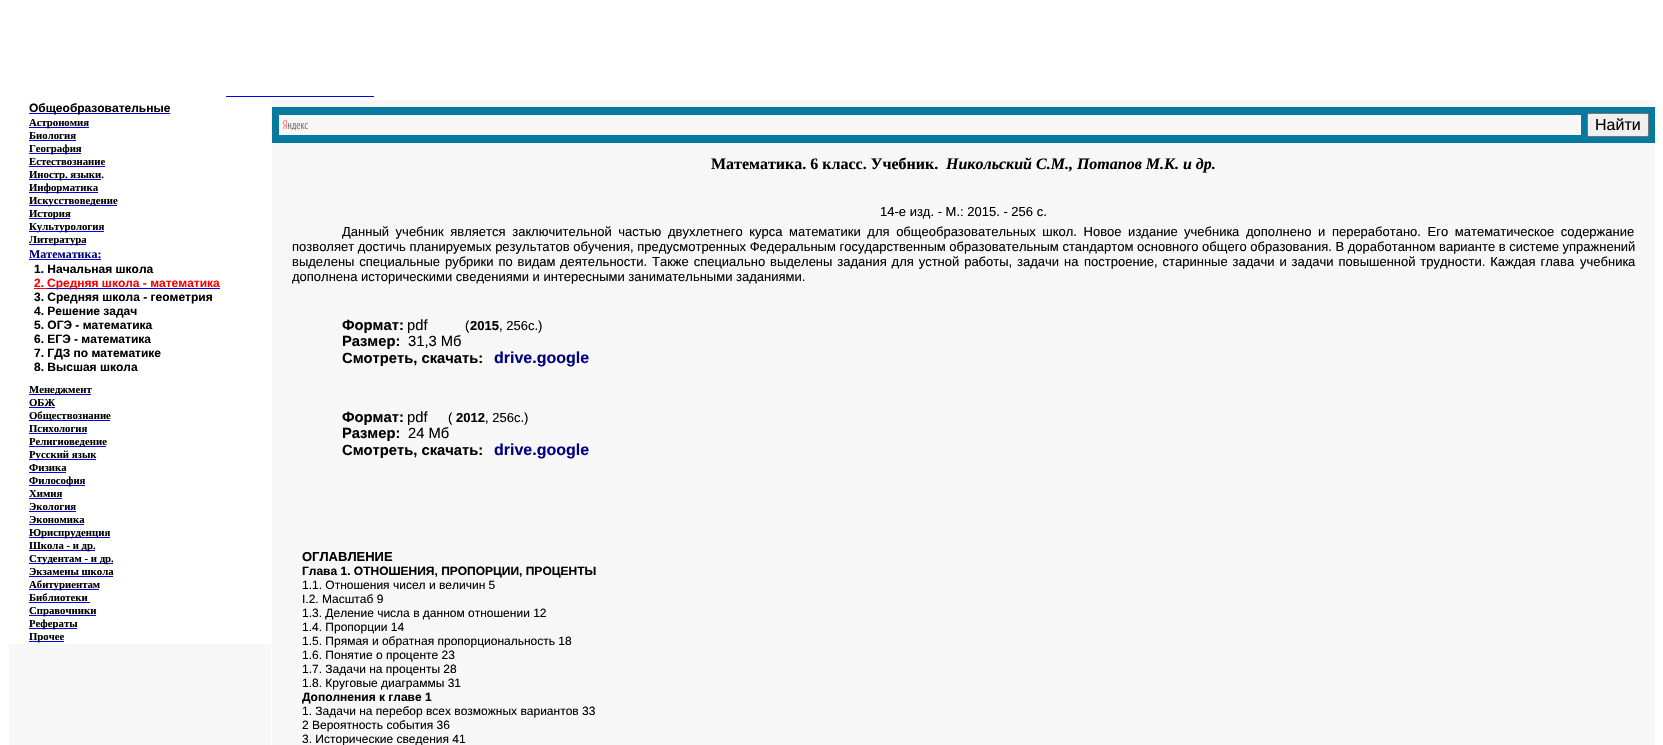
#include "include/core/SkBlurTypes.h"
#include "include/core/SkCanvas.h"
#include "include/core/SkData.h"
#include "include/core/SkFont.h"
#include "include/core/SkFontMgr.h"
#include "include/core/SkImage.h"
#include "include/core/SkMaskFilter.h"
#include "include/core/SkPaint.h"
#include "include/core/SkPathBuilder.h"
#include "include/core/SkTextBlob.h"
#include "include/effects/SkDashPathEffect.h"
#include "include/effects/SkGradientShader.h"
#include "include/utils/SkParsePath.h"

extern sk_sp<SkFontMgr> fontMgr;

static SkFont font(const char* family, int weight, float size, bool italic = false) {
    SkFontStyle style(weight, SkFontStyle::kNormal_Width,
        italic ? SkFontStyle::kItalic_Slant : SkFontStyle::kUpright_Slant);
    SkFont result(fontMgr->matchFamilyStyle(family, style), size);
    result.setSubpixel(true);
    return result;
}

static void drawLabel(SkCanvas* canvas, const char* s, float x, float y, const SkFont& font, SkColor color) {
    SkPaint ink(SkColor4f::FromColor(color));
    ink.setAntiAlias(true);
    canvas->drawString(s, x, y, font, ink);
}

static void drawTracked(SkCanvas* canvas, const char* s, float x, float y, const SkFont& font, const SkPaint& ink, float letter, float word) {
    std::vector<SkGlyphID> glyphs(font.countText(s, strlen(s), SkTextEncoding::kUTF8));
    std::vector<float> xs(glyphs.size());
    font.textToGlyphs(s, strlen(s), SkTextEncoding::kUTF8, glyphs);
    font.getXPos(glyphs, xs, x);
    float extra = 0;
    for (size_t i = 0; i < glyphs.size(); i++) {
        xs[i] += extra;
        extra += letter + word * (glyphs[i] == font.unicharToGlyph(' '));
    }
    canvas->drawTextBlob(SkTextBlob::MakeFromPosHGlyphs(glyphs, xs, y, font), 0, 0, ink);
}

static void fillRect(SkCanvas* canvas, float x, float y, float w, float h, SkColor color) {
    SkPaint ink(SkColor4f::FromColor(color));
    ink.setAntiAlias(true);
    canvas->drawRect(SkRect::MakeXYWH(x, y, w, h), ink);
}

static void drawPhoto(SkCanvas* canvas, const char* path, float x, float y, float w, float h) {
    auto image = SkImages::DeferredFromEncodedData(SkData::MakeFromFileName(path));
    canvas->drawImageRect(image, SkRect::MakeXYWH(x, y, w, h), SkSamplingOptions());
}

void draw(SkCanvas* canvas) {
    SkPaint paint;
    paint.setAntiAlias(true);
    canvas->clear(0xFFFFFFFF);
    fillRect(canvas, 226, 96, 148, 1, 0xFF0000EE);
    fillRect(canvas, 29, 113, 141, 1, 0xFF0000EE);
    SkFont font1 = font("Liberation Sans", 700, 12);
    drawLabel(canvas, "Общеобразовательные", 29, 112, font1, 0xFF000000);
    fillRect(canvas, 272, 100, 1383, 645, 0xFFF7F7F7);
    fillRect(canvas, 272, 107, 1383, 36, 0xFF06799F);
    fillRect(canvas, 279, 115, 1302, 20, 0xFFF7F7F7);
    drawPhoto(canvas, "assets/img1.png", 282, 120, 26, 11);
    paint.setColor(0xFFEFEFEF);
    canvas->drawRoundRect(SkRect::MakeXYWH(1587.5f, 113.5f, 61, 23), 1.5f, 1.5f, paint);
    paint.setStroke(true);
    paint.setStrokeWidth(1);
    paint.setColor(0xFF767676);
    canvas->drawRoundRect(SkRect::MakeXYWH(1587.5f, 113.5f, 61, 23), 1.5f, 1.5f, paint);
    SkFont font2 = font("Liberation Sans", 400, 16);
    drawLabel(canvas, "Найти", 1595, 130, font2, 0xFF000000);
    SkFont font3 = font("Liberation Serif", 700, 16);
    drawLabel(canvas, "Математика. 6 класс. Учебник.", 711, 169, font3, 0xFF000000);
    SkFont font4 = font("Liberation Serif", 700, 16, true);
    drawLabel(canvas, "Никольский С.М., Потапов М.К. и др.", 946, 169, font4, 0xFF000000);
    SkFont font5 = font("Liberation Sans", 400, 13);
    drawLabel(canvas, "14-е изд. - М.: 2015. - 256 с.", 880, 216, font5, 0xFF000000);
    paint.setStroke(false);
    paint.setColor(0xFF000000);
    drawTracked(canvas, "Данный учебник является заключительной частью", 342, 236, font5, paint, 0, 3);
    drawTracked(canvas, "двухлетнего курса математики для общеобразовательных школ. Новое издание", 668, 236, font5, paint, 0, 3);
    drawTracked(canvas, "учебника дополнено и переработано. Его математическое содержание", 1184, 236, font5, paint, 0, 3);
    drawLabel(canvas, "позволяет достичь планируемых результатов обучения, предусмотренных Федеральным государственным образовательным стандартом основного общего образования. В доработанном варианте в системе упражнений", 292, 251, font5, 0xFF000000);
    drawTracked(canvas, "выделены специальные рубрики по видам", 292, 266, font5, paint, 0, 1.25f);
    drawTracked(canvas, "деятельности. Также специально выделены задания для устной работы, задачи на", 560, 266, font5, paint, 0, 1.25f);
    drawTracked(canvas, "построение, старинные задачи и задачи повышенной трудности. Каждая глава", 1084, 266, font5, paint, 0, 1.25f);
    drawLabel(canvas, "учебника", 1580, 266, font5, 0xFF000000);
    drawLabel(canvas, "дополнена историческими сведениями и интересными занимательными заданиями.", 292, 281, font5, 0xFF000000);
    SkFont font6 = font("Liberation Sans", 700, 14.75f);
    drawLabel(canvas, "Формат:", 342, 330, font6, 0xFF000000);
    SkFont font7 = font("Liberation Sans", 400, 14.75f);
    drawLabel(canvas, "pdf", 407, 330, font7, 0xFF000000);
    drawLabel(canvas, "(", 465, 330, font5, 0xFF000000);
    SkFont font8 = font("Liberation Sans", 700, 13);
    drawLabel(canvas, "2015", 470, 330, font8, 0xFF000000);
    drawLabel(canvas, ", 256с.)", 499, 330, font5, 0xFF000000);
    drawLabel(canvas, "Размер:", 342, 346, font6, 0xFF000000);
    drawLabel(canvas, "31,3 Мб", 408, 346, font7, 0xFF000000);
    drawLabel(canvas, "Смотреть, скачать:", 342, 363, font6, 0xFF000000);
    SkFont font9 = font("Liberation Sans", 700, 16);
    drawLabel(canvas, "drive.google", 494, 363, font9, 0xFF000080);
    drawLabel(canvas, "Формат:", 342, 422, font6, 0xFF000000);
    drawLabel(canvas, "pdf", 407, 422, font7, 0xFF000000);
    drawLabel(canvas, "(", 448, 422, font5, 0xFF000000);
    drawLabel(canvas, "2012", 456, 422, font8, 0xFF000000);
    drawLabel(canvas, ", 256с.)", 485, 422, font5, 0xFF000000);
    drawLabel(canvas, "Размер:", 342, 438, font6, 0xFF000000);
    drawLabel(canvas, "24 Мб", 408, 438, font7, 0xFF000000);
    drawLabel(canvas, "Смотреть, скачать:", 342, 455, font6, 0xFF000000);
    drawLabel(canvas, "drive.google", 494, 455, font9, 0xFF000080);
    drawLabel(canvas, "ОГЛАВЛЕНИЕ", 302, 561, font8, 0xFF000000);
    drawLabel(canvas, "Глава 1. ОТНОШЕНИЯ, ПРОПОРЦИИ, ПРОЦЕНТЫ", 302, 575, font1, 0xFF000000);
    SkFont font10 = font("Liberation Sans", 400, 12);
    drawLabel(canvas, "1.1. Отношения чисел и величин 5", 302, 589, font10, 0xFF000000);
    drawLabel(canvas, "I.2. Масштаб 9", 302, 603, font10, 0xFF000000);
    drawLabel(canvas, "1.3. Деление числа в данном отношении 12", 302, 617, font10, 0xFF000000);
    drawLabel(canvas, "1.4. Пропорции 14", 302, 631, font10, 0xFF000000);
    drawLabel(canvas, "1.5. Прямая и обратная пропорциональность 18", 302, 645, font10, 0xFF000000);
    drawLabel(canvas, "1.6. Понятие о проценте 23", 302, 659, font10, 0xFF000000);
    drawLabel(canvas, "1.7. Задачи на проценты 28", 302, 673, font10, 0xFF000000);
    drawLabel(canvas, "1.8. Круговые диаграммы 31", 302, 687, font10, 0xFF000000);
    drawLabel(canvas, "Дополнения к главе 1", 302, 701, font1, 0xFF000000);
    drawLabel(canvas, "1. Задачи на перебор всех возможных вариантов 33", 302, 715, font10, 0xFF000000);
    drawLabel(canvas, "2 Вероятность события 36", 302, 729, font10, 0xFF000000);
    drawLabel(canvas, "3. Исторические сведения 41", 302, 743, font10, 0xFF000000);
    fillRect(canvas, 29, 127, 60, 1, 0xFF0000EE);
    SkFont font11 = font("Liberation Serif", 700, 10.75f);
    drawLabel(canvas, "Астрономия", 29, 126, font11, 0xFF000000);
    drawLabel(canvas, "Биология", 29, 139, font11, 0xFF000000);
    fillRect(canvas, 29, 140, 47, 1, 0xFF0000EE);
    fillRect(canvas, 29, 153, 52, 1, 0xFF0000EE);
    drawLabel(canvas, "География", 29, 152, font11, 0xFF000000);
    drawLabel(canvas, "Естествознание", 29, 165, font11, 0xFF000000);
    fillRect(canvas, 29, 166, 76, 1, 0xFF0000EE);
    fillRect(canvas, 29, 179, 72, 1, 0xFF0000EE);
    drawLabel(canvas, "Иностр. языки.", 29, 178, font11, 0xFF000000);
    fillRect(canvas, 29, 192, 69, 1, 0xFF0000EE);
    drawLabel(canvas, "Информатика", 29, 191, font11, 0xFF000000);
    fillRect(canvas, 29, 205, 88, 1, 0xFF0000EE);
    drawLabel(canvas, "Искусствоведение", 29, 204, font11, 0xFF000000);
    fillRect(canvas, 29, 218, 41, 1, 0xFF0000EE);
    drawLabel(canvas, "История", 29, 217, font11, 0xFF000000);
    fillRect(canvas, 29, 231, 75, 1, 0xFF0000EE);
    drawLabel(canvas, "Культурология", 29, 230, font11, 0xFF000000);
    fillRect(canvas, 29, 244, 57, 1, 0xFF0000EE);
    drawLabel(canvas, "Литература", 29, 243, font11, 0xFF000000);
    SkFont font12 = font("Liberation Serif", 700, 12);
    drawLabel(canvas, "Математика:", 29, 258, font12, 0xFF000080);
    fillRect(canvas, 29, 259, 72, 1, 0xFF0000EE);
    drawLabel(canvas, "1. Начальная школа", 34, 273, font1, 0xFF000000);
    drawLabel(canvas, "2.", 34, 287, font1, 0xFFFF0000);
    fillRect(canvas, 47, 288, 173, 1, 0xFF0000EE);
    drawLabel(canvas, "Средняя школа - математика", 47, 287, font1, 0xFFFF0000);
    fillRect(canvas, 34, 288, 13, 1, 0xFFFF0000);
    drawLabel(canvas, "3. Средняя школа - геометрия", 34, 301, font1, 0xFF000000);
    drawLabel(canvas, "4. Решение задач", 34, 315, font1, 0xFF000000);
    drawLabel(canvas, "5. ОГЭ - математика", 34, 329, font1, 0xFF000000);
    drawLabel(canvas, "6. ЕГЭ - математика", 34, 343, font1, 0xFF000000);
    drawLabel(canvas, "7. ГДЗ по математике", 34, 357, font1, 0xFF000000);
    drawLabel(canvas, "8. Высшая школа", 34, 371, font1, 0xFF000000);
    fillRect(canvas, 29, 394, 62, 1, 0xFF0000EE);
    drawLabel(canvas, "Менеджмент", 29, 393, font11, 0xFF000000);
    drawLabel(canvas, "ОБЖ", 29, 406, font11, 0xFF000000);
    fillRect(canvas, 29, 407, 26, 1, 0xFF0000EE);
    fillRect(canvas, 29, 420, 81, 1, 0xFF0000EE);
    drawLabel(canvas, "Обществознание", 29, 419, font11, 0xFF000000);
    drawLabel(canvas, "Психология", 29, 432, font11, 0xFF000000);
    fillRect(canvas, 29, 433, 58, 1, 0xFF0000EE);
    fillRect(canvas, 29, 446, 77, 1, 0xFF0000EE);
    drawLabel(canvas, "Религиоведение", 29, 445, font11, 0xFF000000);
    fillRect(canvas, 29, 459, 67, 1, 0xFF0000EE);
    drawLabel(canvas, "Русский язык", 29, 458, font11, 0xFF000000);
    drawLabel(canvas, "Физика", 29, 471, font11, 0xFF000000);
    fillRect(canvas, 29, 472, 37, 1, 0xFF0000EE);
    fillRect(canvas, 29, 485, 56, 1, 0xFF0000EE);
    drawLabel(canvas, "Философия", 29, 484, font11, 0xFF000000);
    drawLabel(canvas, "Химия", 29, 497, font11, 0xFF000000);
    fillRect(canvas, 29, 498, 33, 1, 0xFF0000EE);
    drawLabel(canvas, "Экология", 29, 510, font11, 0xFF000000);
    fillRect(canvas, 29, 511, 47, 1, 0xFF0000EE);
    drawLabel(canvas, "Экономика", 29, 523, font11, 0xFF000000);
    fillRect(canvas, 29, 524, 55, 1, 0xFF0000EE);
    fillRect(canvas, 29, 537, 81, 1, 0xFF0000EE);
    drawLabel(canvas, "Юриспруденция", 29, 536, font11, 0xFF000000);
    fillRect(canvas, 29, 550, 66, 1, 0xFF0000EE);
    drawLabel(canvas, "Школа - и др.", 29, 549, font11, 0xFF000000);
    fillRect(canvas, 29, 563, 84, 1, 0xFF0000EE);
    drawLabel(canvas, "Студентам - и др.", 29, 562, font11, 0xFF000000);
    drawLabel(canvas, "Экзамены школа", 29, 575, font11, 0xFF000000);
    fillRect(canvas, 29, 576, 84, 1, 0xFF0000EE);
    fillRect(canvas, 29, 589, 70, 1, 0xFF0000EE);
    drawLabel(canvas, "Абитуриентам", 29, 588, font11, 0xFF000000);
    drawLabel(canvas, "Библиотеки", 29, 601, font11, 0xFF000000);
    fillRect(canvas, 29, 602, 61, 1, 0xFF0000EE);
    fillRect(canvas, 29, 615, 67, 1, 0xFF0000EE);
    drawLabel(canvas, "Справочники", 29, 614, font11, 0xFF000000);
    fillRect(canvas, 29, 628, 48, 1, 0xFF0000EE);
    drawLabel(canvas, "Рефераты", 29, 627, font11, 0xFF000000);
    fillRect(canvas, 29, 641, 35, 1, 0xFF0000EE);
    drawLabel(canvas, "Прочее", 29, 640, font11, 0xFF000000);
    fillRect(canvas, 9, 644, 262, 101, 0xFFF7F7F7);
}
